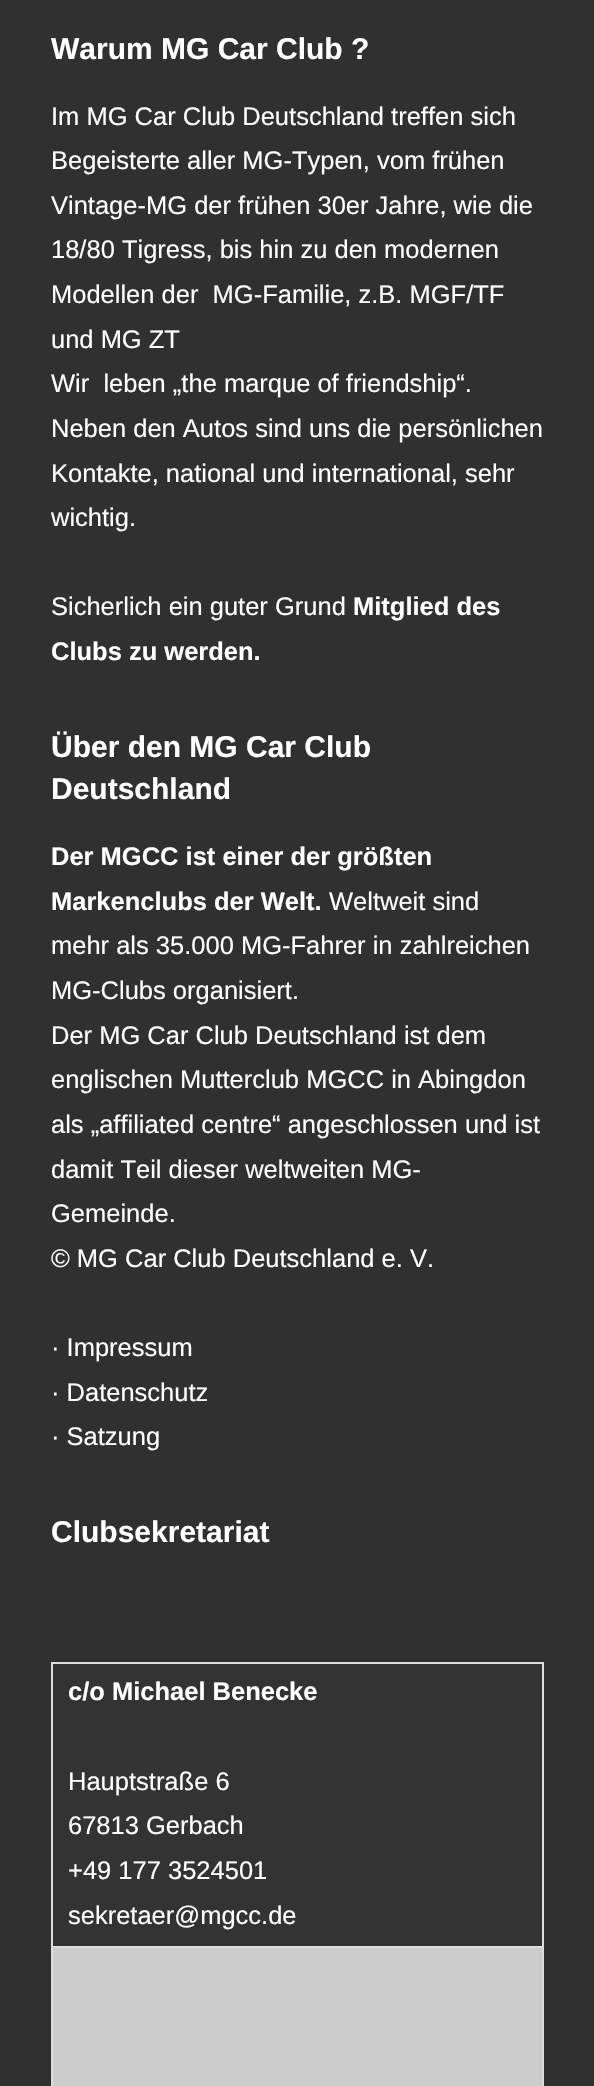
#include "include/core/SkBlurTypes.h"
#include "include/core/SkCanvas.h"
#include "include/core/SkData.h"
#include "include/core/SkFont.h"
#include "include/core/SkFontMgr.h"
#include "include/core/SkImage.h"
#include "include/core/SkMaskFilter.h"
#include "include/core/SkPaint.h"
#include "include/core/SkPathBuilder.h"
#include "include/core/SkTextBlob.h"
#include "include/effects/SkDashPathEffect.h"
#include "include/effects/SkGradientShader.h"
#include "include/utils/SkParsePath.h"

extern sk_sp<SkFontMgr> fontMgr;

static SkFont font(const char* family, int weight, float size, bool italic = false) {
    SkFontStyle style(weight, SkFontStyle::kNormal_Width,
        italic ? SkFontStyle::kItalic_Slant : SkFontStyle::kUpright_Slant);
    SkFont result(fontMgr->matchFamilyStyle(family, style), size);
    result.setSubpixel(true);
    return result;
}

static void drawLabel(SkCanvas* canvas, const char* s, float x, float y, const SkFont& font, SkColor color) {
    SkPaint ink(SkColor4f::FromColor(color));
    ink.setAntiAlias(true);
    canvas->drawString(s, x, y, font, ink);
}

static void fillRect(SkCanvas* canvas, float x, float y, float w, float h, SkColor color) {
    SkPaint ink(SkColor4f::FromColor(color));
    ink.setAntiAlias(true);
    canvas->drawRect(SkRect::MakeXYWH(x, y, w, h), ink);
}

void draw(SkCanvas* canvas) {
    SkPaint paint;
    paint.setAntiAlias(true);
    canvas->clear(0xFF303030);
    SkFont font1 = font("Liberation Sans", 700, 30);
    drawLabel(canvas, "Warum MG Car Club ?", 51, 59, font1, 0xFFFFFFFF);
    SkFont font2 = font("Liberation Sans", 400, 25.5f);
    drawLabel(canvas, "Im MG Car Club Deutschland treffen sich", 51, 125, font2, 0xFFFFFFFF);
    drawLabel(canvas, "Begeisterte aller MG-Typen, vom frühen", 51, 169, font2, 0xFFFFFFFF);
    drawLabel(canvas, "Vintage-MG der frühen 30er Jahre, wie die", 51, 214, font2, 0xFFFFFFFF);
    drawLabel(canvas, "18/80 Tigress, bis hin zu den modernen", 51, 258, font2, 0xFFFFFFFF);
    drawLabel(canvas, "Modellen der  MG-Familie, z.B. MGF/TF", 51, 303, font2, 0xFFFFFFFF);
    drawLabel(canvas, "und MG ZT", 51, 348, font2, 0xFFFFFFFF);
    drawLabel(canvas, "Wir  leben „the marque of friendship“.", 51, 392, font2, 0xFFFFFFFF);
    drawLabel(canvas, "Neben den Autos sind uns die persönlichen", 51, 437, font2, 0xFFFFFFFF);
    drawLabel(canvas, "Kontakte, national und international, sehr", 51, 482, font2, 0xFFFFFFFF);
    drawLabel(canvas, "wichtig.", 51, 526, font2, 0xFFFFFFFF);
    drawLabel(canvas, "Sicherlich ein guter Grund", 51, 615, font2, 0xFFFFFFFF);
    SkFont font3 = font("Liberation Sans", 700, 25.5f);
    drawLabel(canvas, "Mitglied des", 353, 615, font3, 0xFFFFFFFF);
    drawLabel(canvas, "Clubs zu werden.", 51, 660, font3, 0xFFFFFFFF);
    drawLabel(canvas, "Über den MG Car Club", 51, 757, font1, 0xFFFFFFFF);
    drawLabel(canvas, "Deutschland", 51, 799, font1, 0xFFFFFFFF);
    drawLabel(canvas, "Der MGCC ist einer der größten", 51, 865, font3, 0xFFFFFFFF);
    drawLabel(canvas, "Markenclubs der Welt.", 51, 910, font3, 0xFFFFFFFF);
    drawLabel(canvas, "Weltweit sind", 329, 910, font2, 0xFFFFFFFF);
    drawLabel(canvas, "mehr als 35.000 MG-Fahrer in zahlreichen", 51, 954, font2, 0xFFFFFFFF);
    drawLabel(canvas, "MG-Clubs organisiert.", 51, 999, font2, 0xFFFFFFFF);
    drawLabel(canvas, "Der MG Car Club Deutschland ist dem", 51, 1044, font2, 0xFFFFFFFF);
    drawLabel(canvas, "englischen Mutterclub MGCC in Abingdon", 51, 1088, font2, 0xFFFFFFFF);
    drawLabel(canvas, "als „affiliated centre“ angeschlossen und ist", 51, 1133, font2, 0xFFFFFFFF);
    drawLabel(canvas, "damit Teil dieser weltweiten MG-", 51, 1178, font2, 0xFFFFFFFF);
    drawLabel(canvas, "Gemeinde.", 51, 1222, font2, 0xFFFFFFFF);
    drawLabel(canvas, "© MG Car Club Deutschland e. V.", 51, 1267, font2, 0xFFFFFFFF);
    drawLabel(canvas, "· Impressum", 51, 1356, font2, 0xFFFFFFFF);
    drawLabel(canvas, "· Datenschutz", 51, 1401, font2, 0xFFFFFFFF);
    drawLabel(canvas, "· Satzung", 51, 1445, font2, 0xFFFFFFFF);
    drawLabel(canvas, "Clubsekretariat", 51, 1542, font1, 0xFFFFFFFF);
    fillRect(canvas, 53, 1948, 489, 138, 0xFFCCCCCC);
    fillRect(canvas, 53, 1664, 489, 282, 0xFF333333);
    fillRect(canvas, 51, 1662, 492, 2, 0xFFDDDDDD);
    fillRect(canvas, 51, 1946, 492, 2, 0xFFDDDDDD);
    fillRect(canvas, 542, 1946, 2, 140, 0xFFDDDDDD);
    fillRect(canvas, 542, 1662, 2, 285, 0xFFDDDDDD);
    fillRect(canvas, 51, 1946, 2, 140, 0xFFDDDDDD);
    fillRect(canvas, 51, 1662, 2, 285, 0xFFDDDDDD);
    drawLabel(canvas, "c/o Michael Benecke", 68, 1700, font3, 0xFFFFFFFF);
    drawLabel(canvas, "Hauptstraße 6", 68, 1790, font2, 0xFFFFFFFF);
    drawLabel(canvas, "67813 Gerbach", 68, 1834, font2, 0xFFFFFFFF);
    drawLabel(canvas, "+49 177 3524501", 68, 1879, font2, 0xFFFFFFFF);
    drawLabel(canvas, "sekretaer@mgcc.de", 68, 1924, font2, 0xFFFFFFFF);
}
